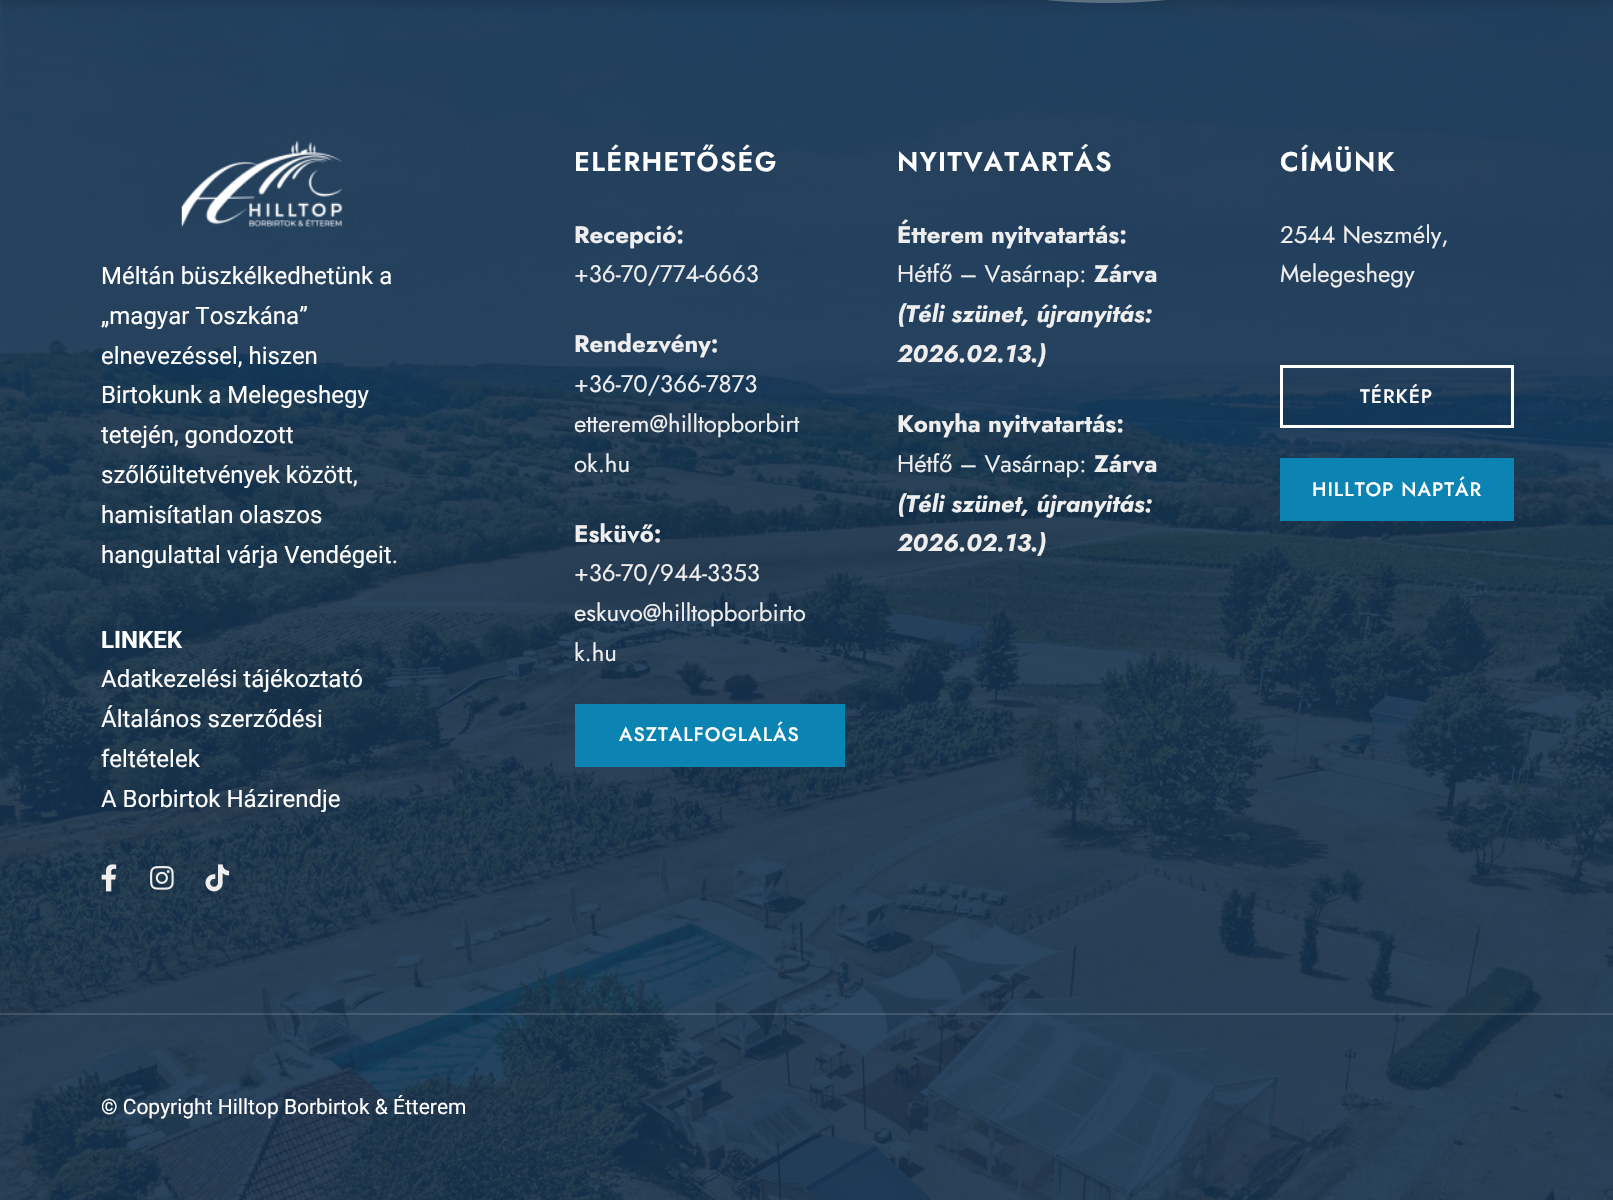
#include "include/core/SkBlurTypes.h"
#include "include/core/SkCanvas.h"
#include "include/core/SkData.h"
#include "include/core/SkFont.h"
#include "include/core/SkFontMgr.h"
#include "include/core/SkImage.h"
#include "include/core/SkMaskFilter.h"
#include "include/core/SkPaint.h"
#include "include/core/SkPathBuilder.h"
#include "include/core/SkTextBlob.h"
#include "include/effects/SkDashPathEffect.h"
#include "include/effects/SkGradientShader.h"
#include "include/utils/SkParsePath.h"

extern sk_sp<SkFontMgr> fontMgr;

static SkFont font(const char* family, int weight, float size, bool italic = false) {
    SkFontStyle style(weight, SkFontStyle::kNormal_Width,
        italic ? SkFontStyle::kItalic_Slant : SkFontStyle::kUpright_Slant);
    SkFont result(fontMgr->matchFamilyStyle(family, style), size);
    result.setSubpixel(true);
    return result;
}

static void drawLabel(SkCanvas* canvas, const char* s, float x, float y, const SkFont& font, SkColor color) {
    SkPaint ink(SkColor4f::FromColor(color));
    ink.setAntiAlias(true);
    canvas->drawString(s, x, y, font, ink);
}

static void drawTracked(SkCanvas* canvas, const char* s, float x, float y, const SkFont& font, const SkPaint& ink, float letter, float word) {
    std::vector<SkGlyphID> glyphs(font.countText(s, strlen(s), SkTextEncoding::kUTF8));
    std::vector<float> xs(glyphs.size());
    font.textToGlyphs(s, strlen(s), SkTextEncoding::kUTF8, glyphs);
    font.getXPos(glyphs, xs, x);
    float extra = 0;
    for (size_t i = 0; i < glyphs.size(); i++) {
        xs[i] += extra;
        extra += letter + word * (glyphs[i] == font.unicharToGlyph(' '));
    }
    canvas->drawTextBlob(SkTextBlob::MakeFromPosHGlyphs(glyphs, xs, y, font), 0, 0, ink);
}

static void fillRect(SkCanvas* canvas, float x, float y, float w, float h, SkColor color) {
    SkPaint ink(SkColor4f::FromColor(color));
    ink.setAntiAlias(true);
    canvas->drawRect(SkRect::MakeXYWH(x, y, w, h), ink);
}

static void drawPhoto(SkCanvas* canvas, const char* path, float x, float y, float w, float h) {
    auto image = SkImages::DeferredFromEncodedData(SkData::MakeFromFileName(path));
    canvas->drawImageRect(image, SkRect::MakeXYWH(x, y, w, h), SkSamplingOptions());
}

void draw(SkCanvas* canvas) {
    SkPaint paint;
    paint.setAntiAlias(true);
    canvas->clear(0xFFFFFFFF);
    drawPhoto(canvas, "assets/img1.png", 0, 0, 1613, 1200);
    drawPhoto(canvas, "assets/img2.png", 1046, 0, 120, 3);
    paint.setColor(0x3D000000);
    paint.setMaskFilter(SkMaskFilter::MakeBlur(kNormal_SkBlurStyle, 7.5f));
    canvas->drawRect(SkRect::MakeXYWH(0, -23, 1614, 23), paint);
    paint.setMaskFilter(nullptr);
    drawPhoto(canvas, "assets/img3.png", 181, 141, 162, 86);
    SkFont font1 = font("Roboto", 400, 24);
    drawLabel(canvas, "Méltán büszkélkedhetünk a", 101, 284, font1, 0xFFFFFFFF);
    drawLabel(canvas, "„magyar Toszkána”", 101, 324, font1, 0xFFFFFFFF);
    drawLabel(canvas, "elnevezéssel, hiszen", 101, 364, font1, 0xFFFFFFFF);
    drawLabel(canvas, "Birtokunk a Melegeshegy", 101, 403, font1, 0xFFFFFFFF);
    drawLabel(canvas, "tetején, gondozott", 101, 443, font1, 0xFFFFFFFF);
    drawLabel(canvas, "szőlőültetvények között,", 101, 483, font1, 0xFFFFFFFF);
    drawLabel(canvas, "hamisítatlan olaszos", 101, 523, font1, 0xFFFFFFFF);
    drawLabel(canvas, "hangulattal várja Vendégeit.", 101, 563, font1, 0xFFFFFFFF);
    SkFont font2 = font("Roboto", 700, 24);
    drawLabel(canvas, "LINKEK", 101, 648, font2, 0xFFFFFFFF);
    drawLabel(canvas, "Adatkezelési tájékoztató", 101, 687, font1, 0xFFFFFFFF);
    drawLabel(canvas, "Általános szerződési", 101, 727, font1, 0xFFFFFFFF);
    drawLabel(canvas, "feltételek", 101, 767, font1, 0xFFFFFFFF);
    drawLabel(canvas, "A Borbirtok Házirendje", 101, 807, font1, 0xFFFFFFFF);
    drawPhoto(canvas, "assets/img4.png", 101, 864, 16, 28);
    drawPhoto(canvas, "assets/img5.png", 150, 866, 24, 24);
    drawPhoto(canvas, "assets/img6.png", 205, 864, 25, 28);
    SkFont font3 = font("Jost", 600, 27);
    paint.setColor(0xFFFFFFFF);
    drawTracked(canvas, "ELÉRHETŐSÉG", 574, 171, font3, paint, 1.4f, 0);
    SkFont font4 = font("Jost", 700, 24);
    drawLabel(canvas, "Recepció:", 574, 243, font4, 0xFFEEEEEE);
    SkFont font5 = font("Jost", 400, 24);
    drawLabel(canvas, "+36-70/774-6663", 574, 282, font5, 0xFFEEEEEE);
    drawLabel(canvas, "Rendezvény:", 574, 352, font4, 0xFFEEEEEE);
    drawLabel(canvas, "+36-70/366-7873", 574, 392, font5, 0xFFEEEEEE);
    drawLabel(canvas, "etterem@hilltopborbirt", 574, 432, font5, 0xFFEEEEEE);
    drawLabel(canvas, "ok.hu", 574, 472, font5, 0xFFEEEEEE);
    drawLabel(canvas, "Esküvő:", 574, 542, font4, 0xFFEEEEEE);
    drawLabel(canvas, "+36-70/944-3353", 574, 581, font5, 0xFFEEEEEE);
    drawLabel(canvas, "eskuvo@hilltopborbirto", 574, 621, font5, 0xFFEEEEEE);
    drawLabel(canvas, "k.hu", 574, 661, font5, 0xFFEEEEEE);
    fillRect(canvas, 575, 704, 270, 63, 0xFF0B84B3);
    SkFont font6 = font("Jost", 500, 19.5f);
    drawTracked(canvas, "ASZTALFOGLALÁS", 619, 741, font6, paint, 1, 0);
    drawTracked(canvas, "NYITVATARTÁS", 897, 171, font3, paint, 1.4f, 0);
    drawLabel(canvas, "Étterem nyitvatartás:", 897, 243, font4, 0xFFEEEEEE);
    drawLabel(canvas, "Hétfő – Vasárnap:", 897, 282, font5, 0xFFEEEEEE);
    drawLabel(canvas, "Zárva", 1094, 282, font4, 0xFFEEEEEE);
    SkFont font7 = font("Jost", 700, 24, true);
    drawLabel(canvas, "(Téli szünet, újranyitás:", 897, 322, font7, 0xFFEEEEEE);
    drawLabel(canvas, "2026.02.13.)", 897, 362, font7, 0xFFEEEEEE);
    drawLabel(canvas, "Konyha nyitvatartás:", 897, 432, font4, 0xFFEEEEEE);
    drawLabel(canvas, "Hétfő – Vasárnap:", 897, 472, font5, 0xFFEEEEEE);
    drawLabel(canvas, "Zárva", 1094, 472, font4, 0xFFEEEEEE);
    drawLabel(canvas, "(Téli szünet, újranyitás:", 897, 512, font7, 0xFFEEEEEE);
    drawLabel(canvas, "2026.02.13.)", 897, 551, font7, 0xFFEEEEEE);
    drawTracked(canvas, "CÍMÜNK", 1280, 171, font3, paint, 1.4f, 0);
    drawLabel(canvas, "2544 Neszmély,", 1280, 243, font5, 0xFFEEEEEE);
    drawLabel(canvas, "Melegeshegy", 1280, 282, font5, 0xFFEEEEEE);
    paint.setStroke(true);
    paint.setStrokeWidth(3);
    canvas->drawRect(SkRect::MakeXYWH(1281.5f, 366.5f, 231, 60), paint);
    paint.setStroke(false);
    drawTracked(canvas, "TÉRKÉP", 1360, 403, font6, paint, 1, 0);
    fillRect(canvas, 1280, 458, 234, 63, 0xFF0B84B3);
    drawTracked(canvas, "HILLTOP NAPTÁR", 1312, 496, font6, paint, 1, 0);
    fillRect(canvas, 0, 1013, 1613, 2, 0x21FFFFFF);
    SkFont font8 = font("Roboto", 400, 21);
    drawLabel(canvas, "© Copyright Hilltop Borbirtok & Étterem", 101, 1114, font8, 0xFFFFFFFF);
}
